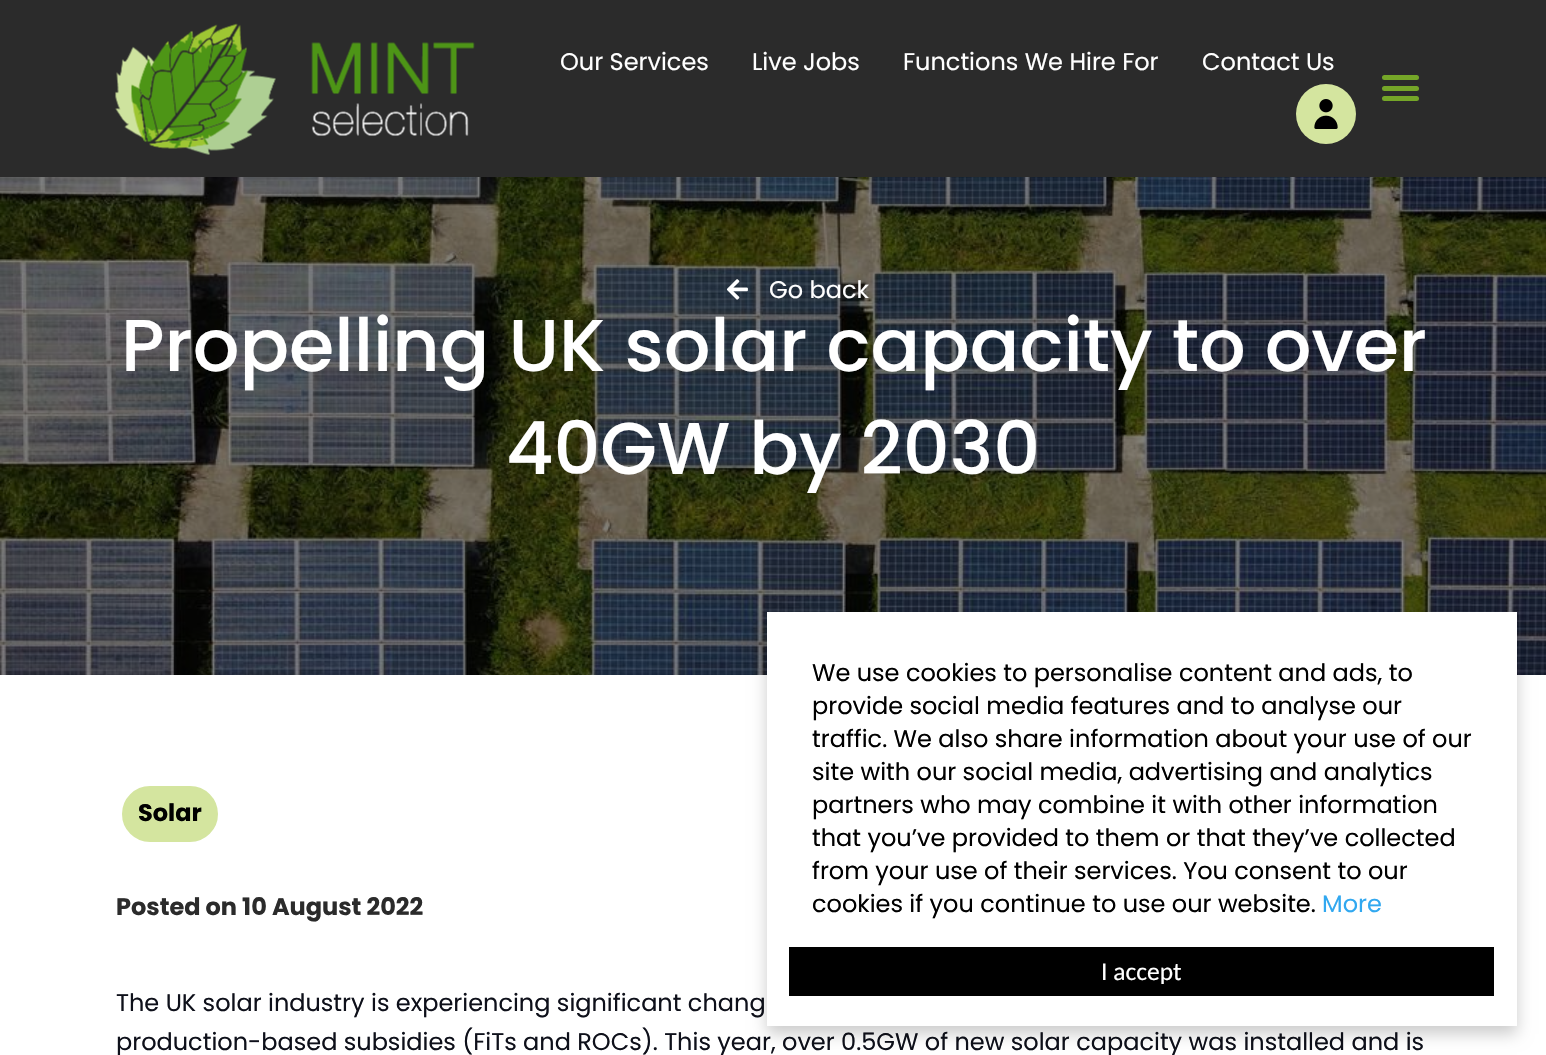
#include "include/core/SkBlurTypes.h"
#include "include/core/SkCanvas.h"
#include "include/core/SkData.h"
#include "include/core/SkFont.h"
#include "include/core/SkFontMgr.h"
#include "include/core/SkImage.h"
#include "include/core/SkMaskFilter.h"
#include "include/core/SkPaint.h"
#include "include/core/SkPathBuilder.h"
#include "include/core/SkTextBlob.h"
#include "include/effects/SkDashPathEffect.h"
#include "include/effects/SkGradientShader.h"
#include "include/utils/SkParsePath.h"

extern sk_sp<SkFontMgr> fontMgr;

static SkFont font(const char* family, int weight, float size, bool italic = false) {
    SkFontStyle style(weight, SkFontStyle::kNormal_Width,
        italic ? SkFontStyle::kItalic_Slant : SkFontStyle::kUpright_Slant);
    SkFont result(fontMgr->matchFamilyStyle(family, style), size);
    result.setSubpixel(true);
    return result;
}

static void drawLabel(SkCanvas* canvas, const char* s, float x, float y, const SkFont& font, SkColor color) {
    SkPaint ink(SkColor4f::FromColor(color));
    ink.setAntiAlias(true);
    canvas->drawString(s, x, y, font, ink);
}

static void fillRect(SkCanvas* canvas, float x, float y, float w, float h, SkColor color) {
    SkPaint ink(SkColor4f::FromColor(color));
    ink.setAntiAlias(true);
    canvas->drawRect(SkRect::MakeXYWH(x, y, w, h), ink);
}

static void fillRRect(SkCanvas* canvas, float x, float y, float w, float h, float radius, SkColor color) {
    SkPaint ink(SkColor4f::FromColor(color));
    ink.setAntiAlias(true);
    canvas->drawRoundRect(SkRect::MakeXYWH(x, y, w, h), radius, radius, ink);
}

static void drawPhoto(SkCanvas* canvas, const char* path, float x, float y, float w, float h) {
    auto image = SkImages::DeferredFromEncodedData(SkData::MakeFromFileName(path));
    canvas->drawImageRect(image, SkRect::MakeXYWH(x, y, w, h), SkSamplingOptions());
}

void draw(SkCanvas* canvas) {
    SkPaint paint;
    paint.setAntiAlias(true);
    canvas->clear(0xFFFFFFFF);
    fillRect(canvas, 0, 0, 1546, 177, 0xFF2B2B2B);
    drawPhoto(canvas, "assets/img1.png", 115, 23, 360, 132);
    SkFont font1 = font("Poppins", 400, 24);
    drawLabel(canvas, "Our Services", 560, 70, font1, 0xFFFFFFFF);
    drawLabel(canvas, "Live Jobs", 752, 70, font1, 0xFFFFFFFF);
    drawLabel(canvas, "Functions We Hire For", 903, 70, font1, 0xFFFFFFFF);
    drawLabel(canvas, "Contact Us", 1202, 70, font1, 0xFFFFFFFF);
    paint.setColor(0xFFD4E59F);
    canvas->drawCircle(1326, 114, 30, paint);
    drawPhoto(canvas, "assets/img2.png", 1314, 99, 24, 30);
    fillRRect(canvas, 1382, 86, 37, 5, 2.5f, 0xFF75A628);
    fillRRect(canvas, 1382, 75, 37, 5, 2.5f, 0xFF75A628);
    fillRRect(canvas, 1382, 96, 37, 5, 2.5f, 0xFF75A628);
    fillRect(canvas, 0, 177, 1546, 498, 0xFF000000);
    drawPhoto(canvas, "assets/img3.png", 0, 177, 1546, 498);
    drawPhoto(canvas, "assets/img4.png", 726, 279, 22, 21);
    drawLabel(canvas, "Go back", 769, 298, font1, 0xFFFFFFFF);
    SkFont font2 = font("Poppins", 500, 73.25f);
    drawLabel(canvas, "Propelling UK solar capacity to over", 121, 371, font2, 0xFFFFFFFF);
    drawLabel(canvas, "40GW by 2030", 506, 474, font2, 0xFFFFFFFF);
    canvas->drawRoundRect(SkRect::MakeXYWH(123, 787, 94, 54), 27, 27, paint);
    paint.setStroke(true);
    paint.setStrokeWidth(2);
    canvas->drawRoundRect(SkRect::MakeXYWH(123, 787, 94, 54), 27, 27, paint);
    SkFont font3 = font("Poppins", 700, 24);
    drawLabel(canvas, "Solar", 138, 821, font3, 0xFF000000);
    drawLabel(canvas, "Posted on 10 August 2022", 116, 915, font3, 0xFF2B2B2B);
    drawLabel(canvas, "The UK solar industry is experiencing significant chang", 116, 1011, font1, 0xFF0E101A);
    drawLabel(canvas, "production-based subsidies (FiTs and ROCs). This year, over 0.5GW of new solar capacity was installed and is", 116, 1050, font1, 0xFF0E101A);
    paint.setStroke(false);
    paint.setColor(0x33000000);
    paint.setMaskFilter(SkMaskFilter::MakeBlur(kNormal_SkBlurStyle, 7.5f));
    canvas->drawRect(SkRect::MakeXYWH(767, 620, 750, 414), paint);
    paint.setMaskFilter(nullptr);
    fillRect(canvas, 767, 612, 750, 414, 0xFFFFFFFF);
    drawLabel(canvas, "We use cookies to personalise content and ads, to", 812, 681, font1, 0xFF000000);
    drawLabel(canvas, "provide social media features and to analyse our", 812, 714, font1, 0xFF000000);
    drawLabel(canvas, "traffic. We also share information about your use of our", 812, 747, font1, 0xFF000000);
    drawLabel(canvas, "site with our social media, advertising and analytics", 812, 780, font1, 0xFF000000);
    drawLabel(canvas, "partners who may combine it with other information", 812, 813, font1, 0xFF000000);
    drawLabel(canvas, "that you’ve provided to them or that they’ve collected", 812, 846, font1, 0xFF000000);
    drawLabel(canvas, "from your use of their services. You consent to our", 812, 879, font1, 0xFF000000);
    drawLabel(canvas, "cookies if you continue to use our website.", 812, 912, font1, 0xFF000000);
    drawLabel(canvas, "More", 1322, 912, font1, 0xFF31A8F0);
    fillRect(canvas, 789, 947, 705, 49, 0xFF000000);
    SkFont font4 = font("Carlito", 400, 25.5f);
    drawLabel(canvas, "I accept", 1101, 980, font4, 0xFFFFFFFF);
}
